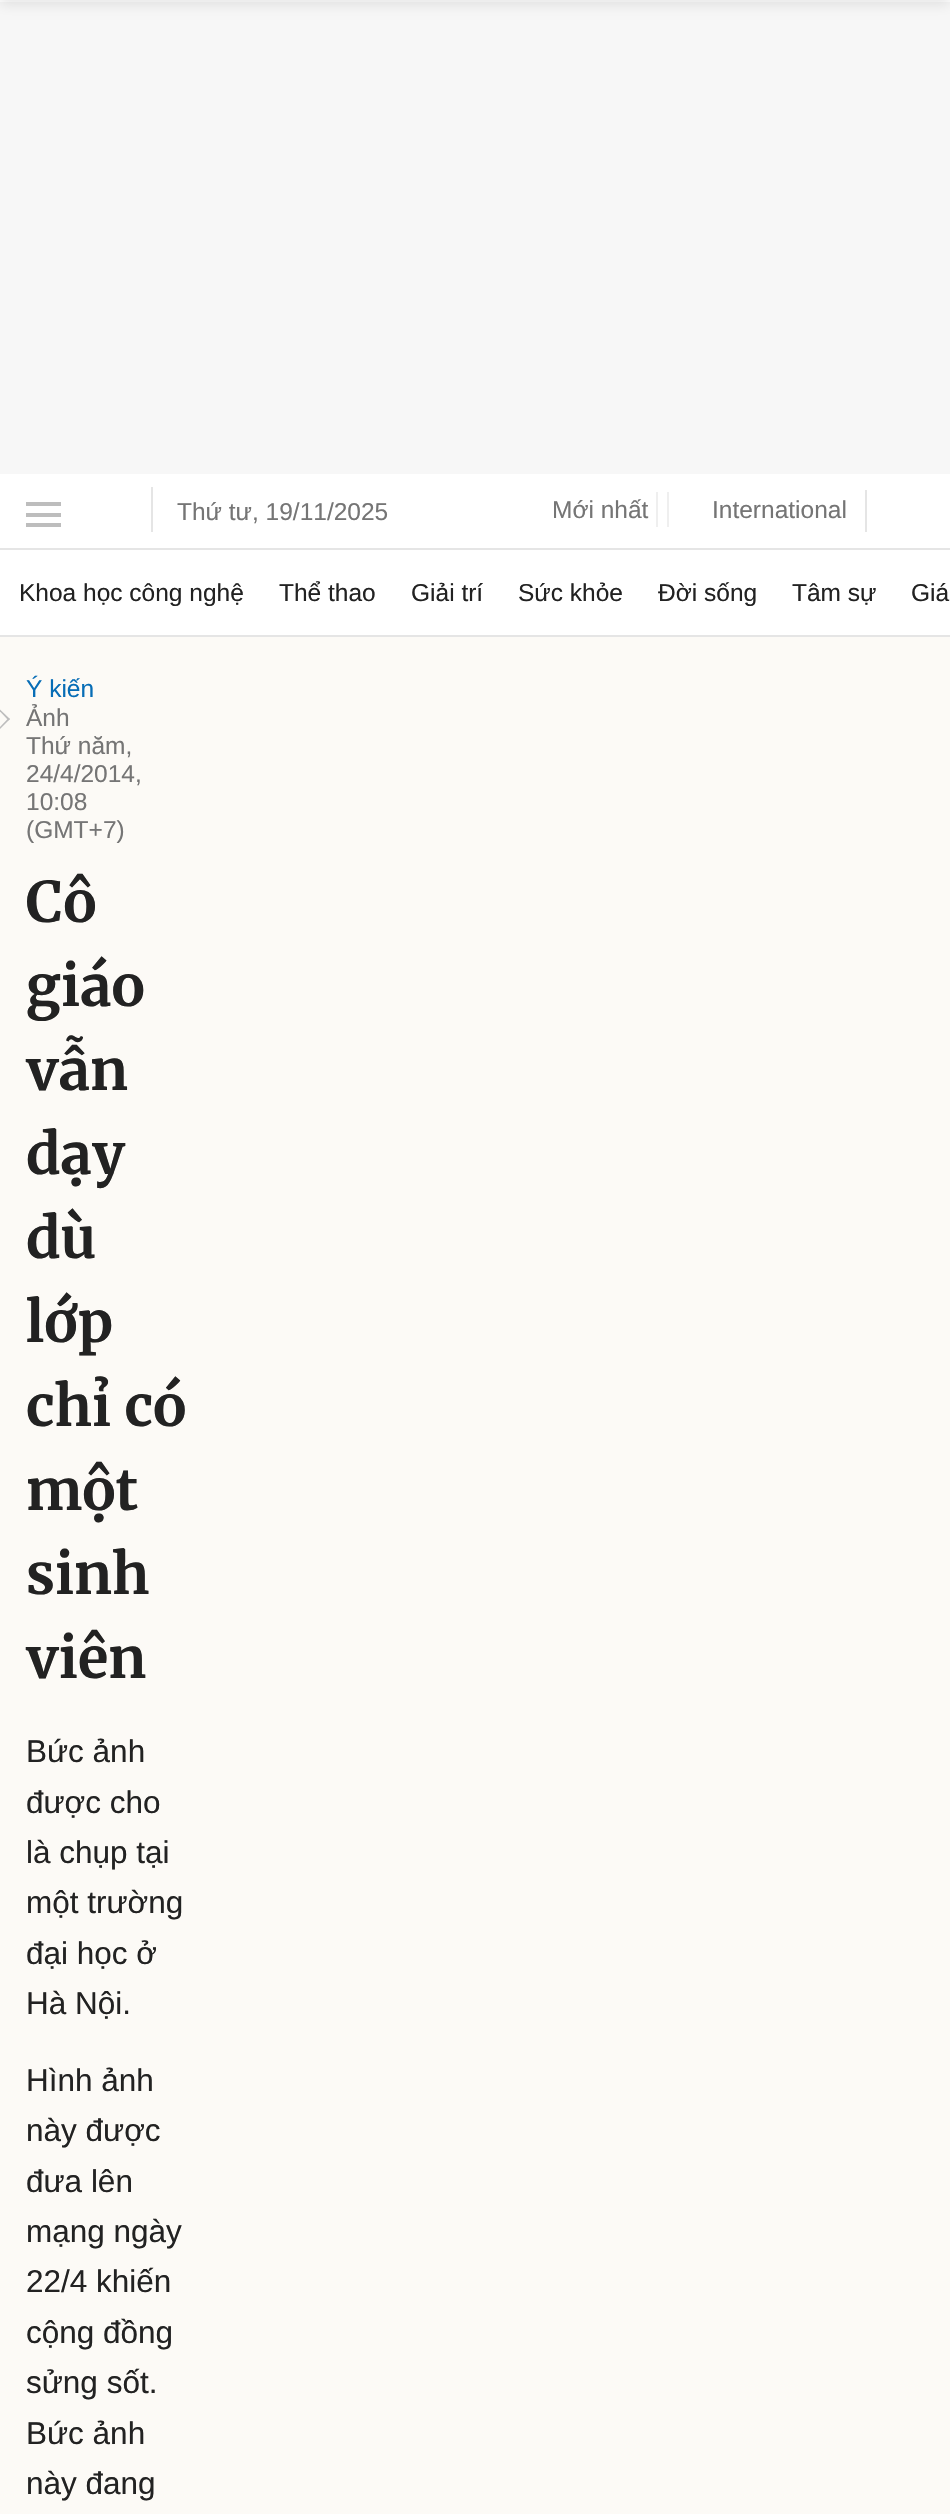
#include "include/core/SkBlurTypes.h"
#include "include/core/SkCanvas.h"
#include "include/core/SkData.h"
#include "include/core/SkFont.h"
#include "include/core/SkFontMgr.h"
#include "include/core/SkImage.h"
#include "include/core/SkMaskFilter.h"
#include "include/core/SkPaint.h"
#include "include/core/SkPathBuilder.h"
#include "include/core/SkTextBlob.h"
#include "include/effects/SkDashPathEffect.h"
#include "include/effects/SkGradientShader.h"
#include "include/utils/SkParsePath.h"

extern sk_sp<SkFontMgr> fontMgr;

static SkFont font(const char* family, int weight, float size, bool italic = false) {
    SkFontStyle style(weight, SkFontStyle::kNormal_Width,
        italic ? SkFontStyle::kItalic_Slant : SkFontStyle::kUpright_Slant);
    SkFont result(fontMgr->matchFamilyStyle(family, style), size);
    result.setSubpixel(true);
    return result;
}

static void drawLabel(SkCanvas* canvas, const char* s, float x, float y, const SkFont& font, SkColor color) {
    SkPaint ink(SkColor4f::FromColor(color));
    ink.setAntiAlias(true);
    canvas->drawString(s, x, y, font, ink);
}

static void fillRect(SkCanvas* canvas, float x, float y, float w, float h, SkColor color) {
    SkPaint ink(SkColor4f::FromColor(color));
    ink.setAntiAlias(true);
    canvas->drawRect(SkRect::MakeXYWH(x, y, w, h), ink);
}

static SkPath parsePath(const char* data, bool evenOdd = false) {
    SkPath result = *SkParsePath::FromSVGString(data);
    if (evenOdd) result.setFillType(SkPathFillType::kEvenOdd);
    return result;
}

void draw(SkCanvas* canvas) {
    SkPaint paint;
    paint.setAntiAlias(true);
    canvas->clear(0xFFFFFFFF);
    fillRect(canvas, 0, 2, 950, 472, 0xFFF7F7F7);
    fillRect(canvas, 0, 548, 950, 2, 0xFFE5E5E5);
    fillRect(canvas, 26, 502, 35, 4, 0xFFBDBDBD);
    fillRect(canvas, 26, 513, 35, 4, 0xFFBDBDBD);
    fillRect(canvas, 26, 523, 35, 4, 0xFFBDBDBD);
    fillRect(canvas, 151, 487, 2, 45, 0xFFE5E5E5);
    SkFont font1 = font("Liberation Sans", 400, 24.5f);
    drawLabel(canvas, "Thứ tư, 19/11/2025", 177, 520, font1, 0xFF757575);
    drawLabel(canvas, "Mới nhất", 552, 518, font1, 0xFF757575);
    fillRect(canvas, 667, 492, 2, 35, 0xFFEFEFEF);
    fillRect(canvas, 656, 492, 2, 35, 0xFFEFEFEF);
    drawLabel(canvas, "International", 712, 518, font1, 0xFF757575);
    fillRect(canvas, 865, 490, 2, 42, 0xFFE5E5E5);
    fillRect(canvas, 0, 635, 950, 2, 0xFFE5E5E5);
    drawLabel(canvas, "Khoa học công nghệ", 19, 601, font1, 0xFF222222);
    drawLabel(canvas, "Thể thao", 279, 601, font1, 0xFF222222);
    drawLabel(canvas, "Giải trí", 411, 601, font1, 0xFF222222);
    drawLabel(canvas, "Sức khỏe", 518, 601, font1, 0xFF222222);
    drawLabel(canvas, "Đời sống", 658, 601, font1, 0xFF222222);
    drawLabel(canvas, "Tâm sự", 792, 601, font1, 0xFF222222);
    drawLabel(canvas, "Giá", 911, 601, font1, 0xFF222222);
    fillRect(canvas, 0, 637, 950, 1877, 0xFFFCFAF6);
    paint.setColor(0x1A000000);
    paint.setMaskFilter(SkMaskFilter::MakeBlur(kNormal_SkBlurStyle, 7));
    canvas->drawRect(SkRect::MakeXYWH(0, -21, 950, 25), paint);
    paint.setMaskFilter(nullptr);
    drawLabel(canvas, "Ý kiến", 26, 697, font1, 0xFF076DB6);
    paint.setColor(0xFFBDBDBD);
    canvas->drawPath(parsePath("M0 709.5L10 719L8.5 720.5L-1 710.5Z"), paint);
    canvas->drawPath(parsePath("M8.5 718L10 719L0 729L-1 728Z"), paint);
    drawLabel(canvas, "Ảnh", 26, 726, font1, 0xFF757575);
    drawLabel(canvas, "Thứ năm,", 26, 754, font1, 0xFF757575);
    drawLabel(canvas, "24/4/2014,", 26, 782, font1, 0xFF757575);
    drawLabel(canvas, "10:08", 26, 810, font1, 0xFF757575);
    drawLabel(canvas, "(GMT+7)", 26, 838, font1, 0xFF757575);
    SkFont font2 = font("Merriweather", 700, 56);
    drawLabel(canvas, "Cô", 26, 922, font2, 0xFF222222);
    drawLabel(canvas, "giáo", 26, 1006, font2, 0xFF222222);
    drawLabel(canvas, "vẫn", 26, 1090, font2, 0xFF222222);
    drawLabel(canvas, "dạy", 26, 1174, font2, 0xFF222222);
    drawLabel(canvas, "dù", 26, 1258, font2, 0xFF222222);
    drawLabel(canvas, "lớp", 26, 1342, font2, 0xFF222222);
    drawLabel(canvas, "chỉ có", 26, 1426, font2, 0xFF222222);
    drawLabel(canvas, "một", 26, 1510, font2, 0xFF222222);
    drawLabel(canvas, "sinh", 26, 1594, font2, 0xFF222222);
    drawLabel(canvas, "viên", 26, 1678, font2, 0xFF222222);
    SkFont font3 = font("Liberation Sans", 400, 31.5f);
    drawLabel(canvas, "Bức ảnh", 26, 1762, font3, 0xFF222222);
    drawLabel(canvas, "được cho", 26, 1813, font3, 0xFF222222);
    drawLabel(canvas, "là chụp tại", 26, 1863, font3, 0xFF222222);
    drawLabel(canvas, "một trường", 26, 1913, font3, 0xFF222222);
    drawLabel(canvas, "đại học ở", 26, 1964, font3, 0xFF222222);
    drawLabel(canvas, "Hà Nội.", 26, 2014, font3, 0xFF222222);
    drawLabel(canvas, "Hình ảnh", 26, 2091, font3, 0xFF222222);
    drawLabel(canvas, "này được", 26, 2141, font3, 0xFF222222);
    drawLabel(canvas, "đưa lên", 26, 2192, font3, 0xFF222222);
    drawLabel(canvas, "mạng ngày", 26, 2242, font3, 0xFF222222);
    drawLabel(canvas, "22/4 khiến", 26, 2292, font3, 0xFF222222);
    drawLabel(canvas, "cộng đồng", 26, 2343, font3, 0xFF222222);
    drawLabel(canvas, "sửng sốt.", 26, 2393, font3, 0xFF222222);
    drawLabel(canvas, "Bức ảnh", 26, 2444, font3, 0xFF222222);
    drawLabel(canvas, "này đang", 26, 2494, font3, 0xFF222222);
}
